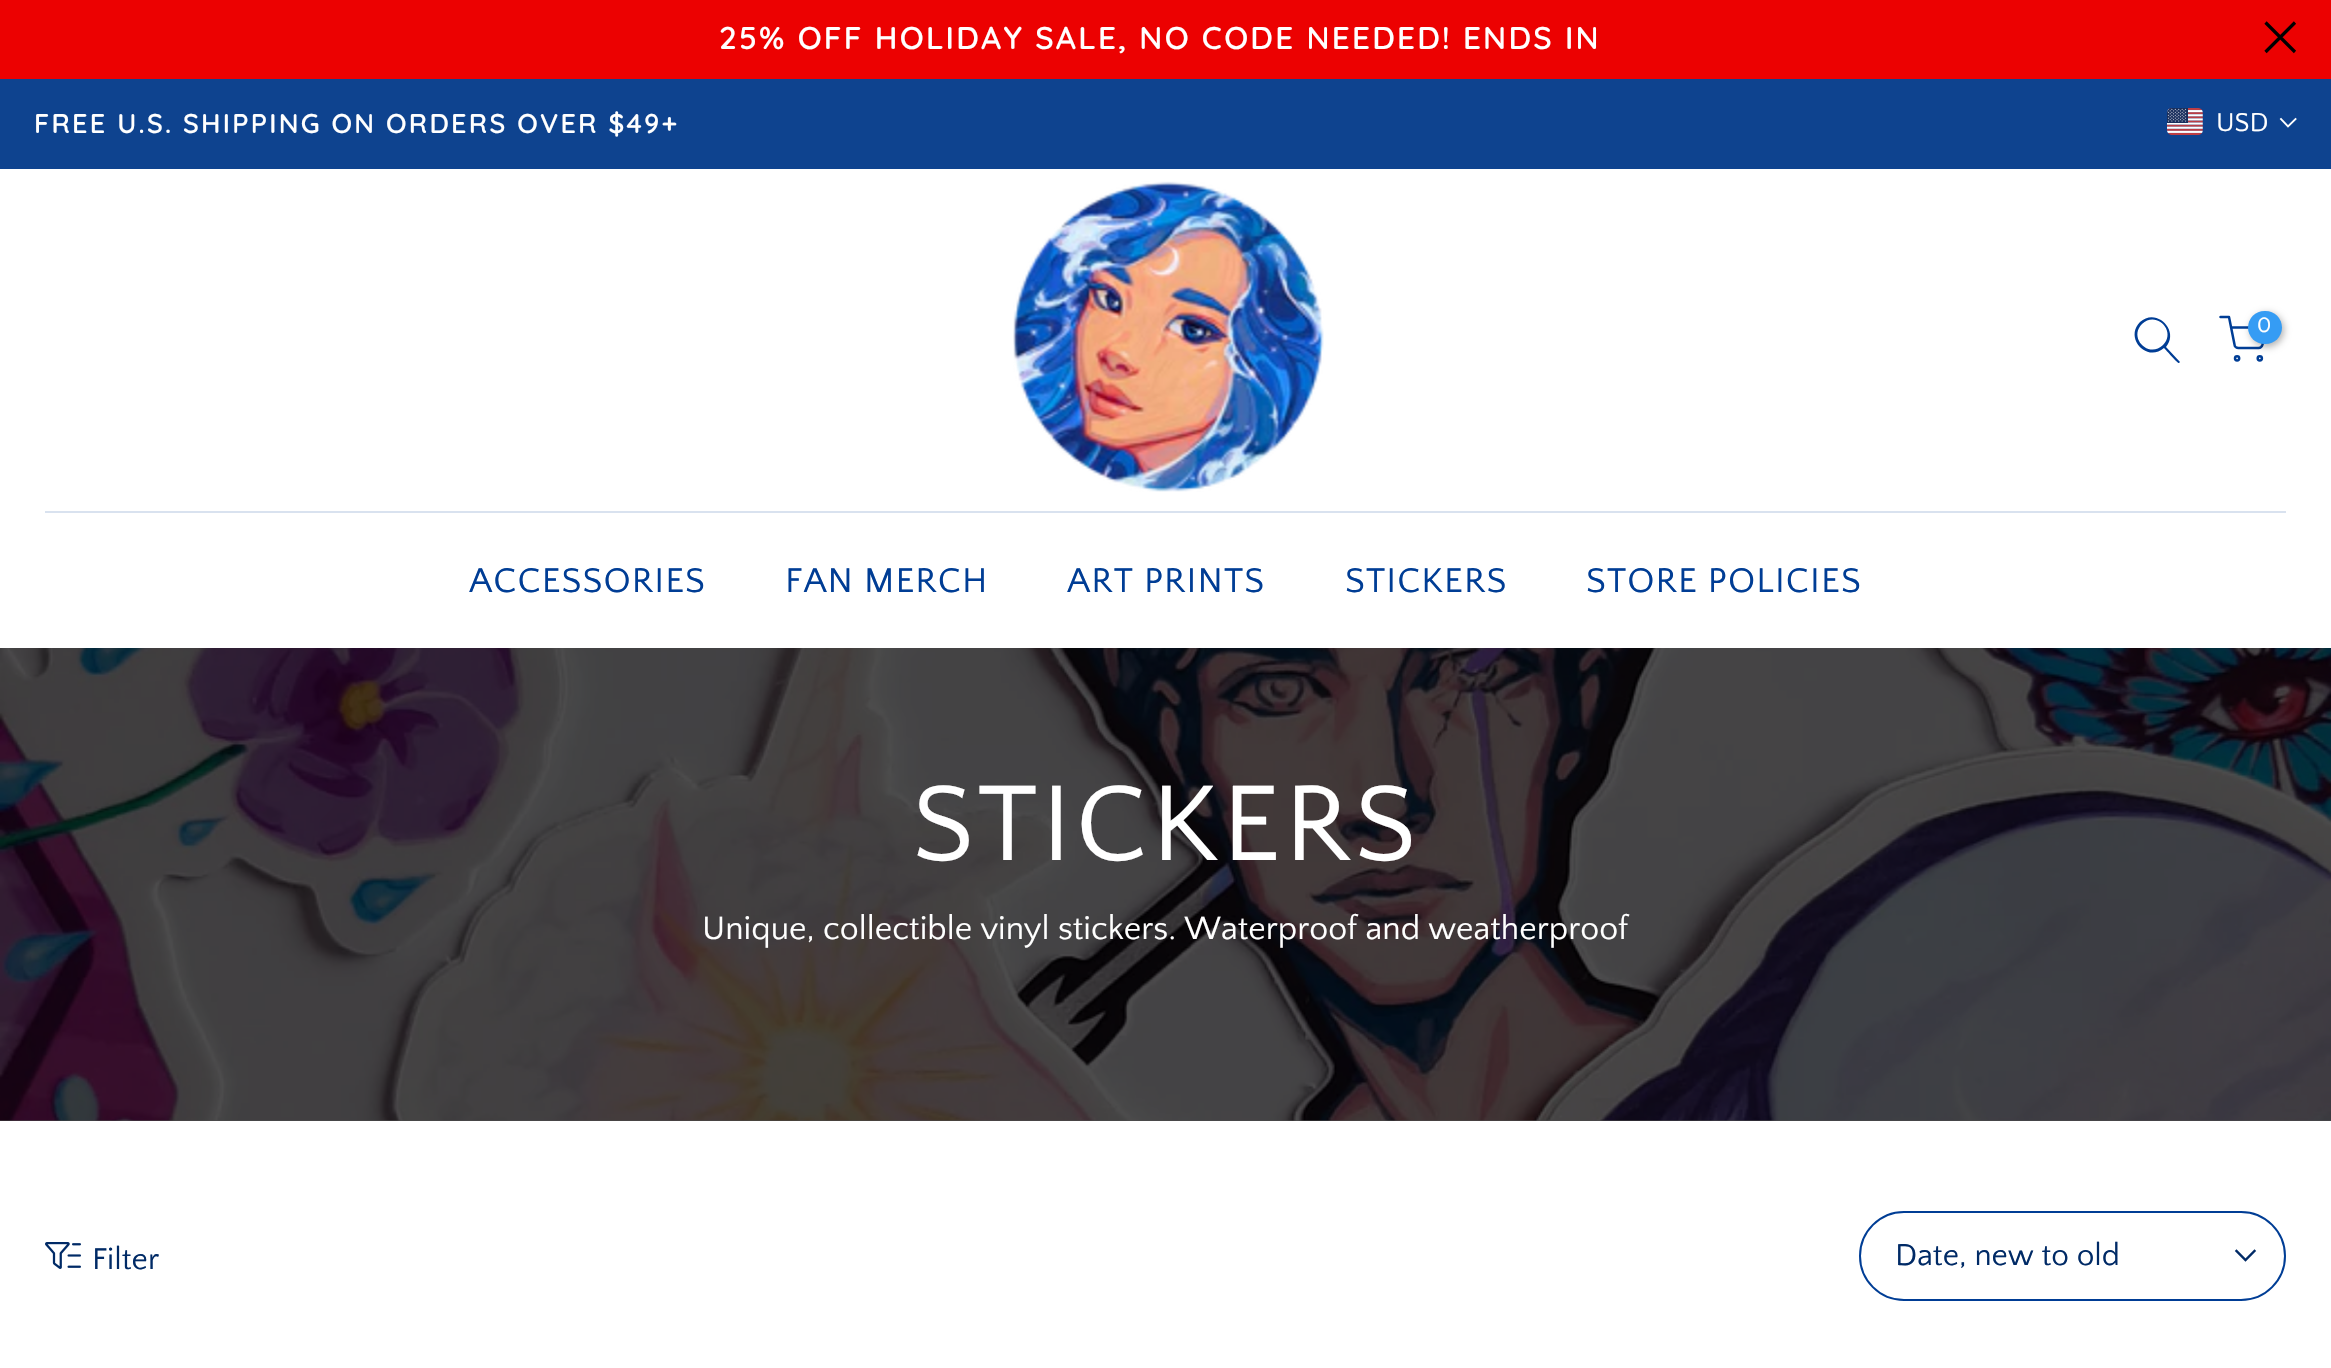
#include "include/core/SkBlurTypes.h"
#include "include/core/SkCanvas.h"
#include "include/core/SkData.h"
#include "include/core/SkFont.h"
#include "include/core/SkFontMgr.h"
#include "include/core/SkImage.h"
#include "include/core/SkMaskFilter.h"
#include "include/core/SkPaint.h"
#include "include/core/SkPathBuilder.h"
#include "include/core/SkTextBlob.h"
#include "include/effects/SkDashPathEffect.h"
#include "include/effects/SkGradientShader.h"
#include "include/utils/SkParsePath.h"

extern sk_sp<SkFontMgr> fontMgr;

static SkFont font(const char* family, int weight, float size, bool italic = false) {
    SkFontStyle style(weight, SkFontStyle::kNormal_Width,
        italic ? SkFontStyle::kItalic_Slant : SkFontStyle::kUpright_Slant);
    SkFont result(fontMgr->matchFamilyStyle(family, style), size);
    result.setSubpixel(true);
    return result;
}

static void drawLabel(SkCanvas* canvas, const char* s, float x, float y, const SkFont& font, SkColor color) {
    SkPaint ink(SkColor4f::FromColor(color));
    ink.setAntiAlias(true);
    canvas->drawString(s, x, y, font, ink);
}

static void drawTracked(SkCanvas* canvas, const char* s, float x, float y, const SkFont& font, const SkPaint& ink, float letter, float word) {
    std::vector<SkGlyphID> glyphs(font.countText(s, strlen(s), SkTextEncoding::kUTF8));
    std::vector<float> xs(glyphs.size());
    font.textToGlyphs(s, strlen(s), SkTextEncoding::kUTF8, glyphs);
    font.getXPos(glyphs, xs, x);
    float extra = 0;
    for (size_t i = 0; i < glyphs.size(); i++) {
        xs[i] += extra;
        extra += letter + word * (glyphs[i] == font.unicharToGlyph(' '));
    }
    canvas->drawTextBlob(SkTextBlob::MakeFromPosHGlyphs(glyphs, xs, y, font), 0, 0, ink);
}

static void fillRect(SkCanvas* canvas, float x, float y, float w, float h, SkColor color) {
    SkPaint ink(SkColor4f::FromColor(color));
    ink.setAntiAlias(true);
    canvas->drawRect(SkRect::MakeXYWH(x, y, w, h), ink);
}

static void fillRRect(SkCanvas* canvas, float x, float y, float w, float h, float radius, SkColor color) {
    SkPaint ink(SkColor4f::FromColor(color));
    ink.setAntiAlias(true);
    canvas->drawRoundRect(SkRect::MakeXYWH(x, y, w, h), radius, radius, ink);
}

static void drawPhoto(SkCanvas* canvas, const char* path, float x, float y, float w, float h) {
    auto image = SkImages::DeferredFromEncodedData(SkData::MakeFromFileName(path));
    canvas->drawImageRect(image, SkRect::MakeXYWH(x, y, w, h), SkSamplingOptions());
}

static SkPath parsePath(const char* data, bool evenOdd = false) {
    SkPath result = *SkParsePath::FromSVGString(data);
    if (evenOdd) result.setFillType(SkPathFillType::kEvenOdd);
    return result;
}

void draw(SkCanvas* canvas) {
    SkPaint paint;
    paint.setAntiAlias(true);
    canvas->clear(0xFFFFFFFF);
    fillRect(canvas, 0, 0, 2331, 79, 0xFFEC0101);
    SkFont font1 = font("Quicksand", 600, 31.5f);
    paint.setColor(0xFFFFFFFF);
    drawTracked(canvas, "25% OFF HOLIDAY SALE, NO CODE NEEDED! ENDS IN", 719, 49, font1, paint, 2.25f, 0);
    paint.setStroke(true);
    paint.setStrokeWidth(3.2f);
    paint.setColor(0xFF000000);
    canvas->drawPath(parsePath("M2295 22.5L2265.5 52M2295 52L2265.5 22.5"), paint);
    fillRect(canvas, 0, 79, 2331, 90, 0xFF0E438F);
    SkFont font2 = font("Quicksand", 600, 27);
    paint.setStroke(false);
    paint.setColor(0xFFFFFFFF);
    drawTracked(canvas, "FREE U.S. SHIPPING ON ORDERS OVER $49+", 34, 133, font2, paint, 2.25f, 0);
    drawPhoto(canvas, "assets/img1.png", 2167, 108, 36, 27);
    SkFont font3 = font("Quattrocento Sans", 400, 27);
    drawLabel(canvas, "USD", 2216, 131, font3, 0xFFFFFFFF);
    paint.setStroke(true);
    paint.setStrokeWidth(1.9f);
    paint.setStrokeCap(SkPaint::kSquare_Cap);
    canvas->drawPath(parsePath("M2295.5 119L2288 126.5L2281 119"), paint);
    fillRect(canvas, 45, 511, 2241, 2, 0xFFD9E2EF);
    drawPhoto(canvas, "assets/img2.png", 1013, 181, 311, 311);
    paint.setStroke(false);
    paint.setColor(0xFF003D95);
    canvas->drawPath(parsePath("M2163 345C2149 359 2128 338 2142 324C2156 310 2177 331 2163 345ZM2164 348C2147 363 2124 338 2140 322C2156 307 2180 330 2166 347L2180 362L2179 363C2178 364 2166 350 2164 348Z", true), paint);
    paint.setStroke(true);
    paint.setStrokeWidth(2.5f);
    paint.setStrokeCap(SkPaint::kRound_Cap);
    paint.setStrokeJoin(SkPaint::kRound_Join);
    canvas->drawPath(parsePath("M2220.5 317H2229L2234.5 344.5C2234.5 346.5 2236.5 348 2238.5 348H2258.5C2260.5 348 2262 346.5 2262.5 344.5L2266 327.5H2231"), paint);
    paint.setStrokeCap(SkPaint::kButt_Cap);
    paint.setStrokeJoin(SkPaint::kMiter_Join);
    canvas->drawCircle(2237.1f, 358.3f, 2.1f, paint);
    canvas->drawCircle(2259.8f, 358.3f, 2.1f, paint);
    paint.setStroke(false);
    paint.setColor(0x4D000000);
    paint.setMaskFilter(SkMaskFilter::MakeBlur(kNormal_SkBlurStyle, 3.5f));
    canvas->drawRoundRect(SkRect::MakeXYWH(2250, 313, 34, 34), 17, 17, paint);
    paint.setMaskFilter(nullptr);
    fillRRect(canvas, 2248, 311, 34, 33, 16.5f, 0xFF359CF4);
    SkFont font4 = font("Quattrocento Sans", 400, 22);
    drawLabel(canvas, "0", 2257, 332, font4, 0xFFFFFFFF);
    SkFont font5 = font("Quattrocento Sans", 400, 36);
    paint.setColor(0xFF003D95);
    drawTracked(canvas, "ACCESSORIES", 469, 592, font5, paint, 1.1f, 0);
    drawTracked(canvas, "FAN MERCH", 785, 592, font5, paint, 1.1f, 0);
    drawTracked(canvas, "ART PRINTS", 1067, 592, font5, paint, 1.1f, 0);
    drawTracked(canvas, "STICKERS", 1345, 592, font5, paint, 1.1f, 0);
    drawTracked(canvas, "STORE POLICIES", 1586, 592, font5, paint, 1.1f, 0);
    drawPhoto(canvas, "assets/img3.png", 0, 648, 2331, 473);
    fillRect(canvas, 0, 648, 2331, 473, 0xB3000000);
    SkFont font6 = font("Quattrocento Sans", 400, 112.5f);
    paint.setColor(0xFFFFFFFF);
    drawTracked(canvas, "STICKERS", 912, 860, font6, paint, 3.5f, 0);
    SkFont font7 = font("Quattrocento Sans", 400, 33.75f);
    drawLabel(canvas, "Unique, collectible vinyl stickers. Waterproof and weatherproof", 702, 939, font7, 0xFFFFFFFF);
    drawPhoto(canvas, "assets/img4.png", 45, 1242, 36, 27);
    SkFont font8 = font("Quattrocento Sans", 400, 31.5f);
    drawLabel(canvas, "Filter", 92, 1269, font8, 0xFF002A66);
    paint.setStroke(true);
    paint.setStrokeWidth(2);
    paint.setColor(0xFF003D95);
    canvas->drawRoundRect(SkRect::MakeXYWH(1860, 1212, 425, 88), 44, 44, paint);
    drawLabel(canvas, "Date, new to old", 1895, 1265, font8, 0xFF002A66);
    paint.setStrokeWidth(2.4f);
    paint.setStrokeCap(SkPaint::kSquare_Cap);
    paint.setColor(0xFF002A66);
    canvas->drawPath(parsePath("M2254.5 1251L2245.5 1260L2236.5 1251"), paint);
}
